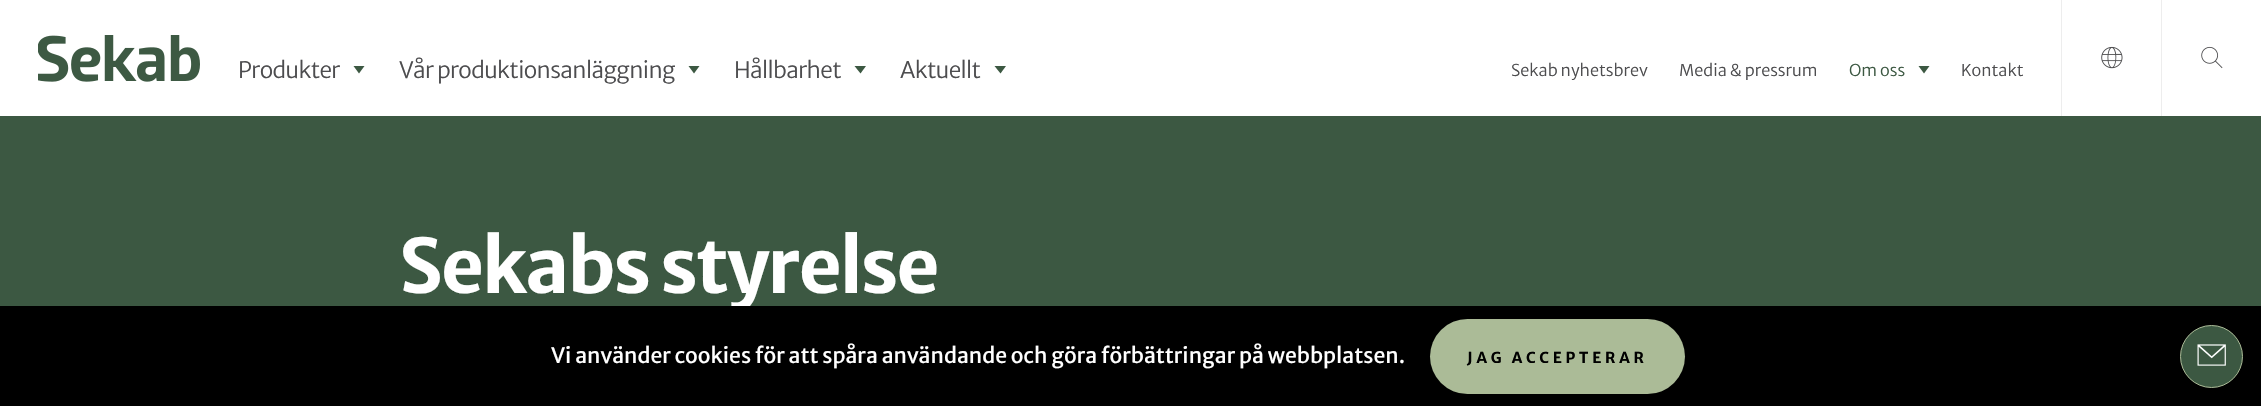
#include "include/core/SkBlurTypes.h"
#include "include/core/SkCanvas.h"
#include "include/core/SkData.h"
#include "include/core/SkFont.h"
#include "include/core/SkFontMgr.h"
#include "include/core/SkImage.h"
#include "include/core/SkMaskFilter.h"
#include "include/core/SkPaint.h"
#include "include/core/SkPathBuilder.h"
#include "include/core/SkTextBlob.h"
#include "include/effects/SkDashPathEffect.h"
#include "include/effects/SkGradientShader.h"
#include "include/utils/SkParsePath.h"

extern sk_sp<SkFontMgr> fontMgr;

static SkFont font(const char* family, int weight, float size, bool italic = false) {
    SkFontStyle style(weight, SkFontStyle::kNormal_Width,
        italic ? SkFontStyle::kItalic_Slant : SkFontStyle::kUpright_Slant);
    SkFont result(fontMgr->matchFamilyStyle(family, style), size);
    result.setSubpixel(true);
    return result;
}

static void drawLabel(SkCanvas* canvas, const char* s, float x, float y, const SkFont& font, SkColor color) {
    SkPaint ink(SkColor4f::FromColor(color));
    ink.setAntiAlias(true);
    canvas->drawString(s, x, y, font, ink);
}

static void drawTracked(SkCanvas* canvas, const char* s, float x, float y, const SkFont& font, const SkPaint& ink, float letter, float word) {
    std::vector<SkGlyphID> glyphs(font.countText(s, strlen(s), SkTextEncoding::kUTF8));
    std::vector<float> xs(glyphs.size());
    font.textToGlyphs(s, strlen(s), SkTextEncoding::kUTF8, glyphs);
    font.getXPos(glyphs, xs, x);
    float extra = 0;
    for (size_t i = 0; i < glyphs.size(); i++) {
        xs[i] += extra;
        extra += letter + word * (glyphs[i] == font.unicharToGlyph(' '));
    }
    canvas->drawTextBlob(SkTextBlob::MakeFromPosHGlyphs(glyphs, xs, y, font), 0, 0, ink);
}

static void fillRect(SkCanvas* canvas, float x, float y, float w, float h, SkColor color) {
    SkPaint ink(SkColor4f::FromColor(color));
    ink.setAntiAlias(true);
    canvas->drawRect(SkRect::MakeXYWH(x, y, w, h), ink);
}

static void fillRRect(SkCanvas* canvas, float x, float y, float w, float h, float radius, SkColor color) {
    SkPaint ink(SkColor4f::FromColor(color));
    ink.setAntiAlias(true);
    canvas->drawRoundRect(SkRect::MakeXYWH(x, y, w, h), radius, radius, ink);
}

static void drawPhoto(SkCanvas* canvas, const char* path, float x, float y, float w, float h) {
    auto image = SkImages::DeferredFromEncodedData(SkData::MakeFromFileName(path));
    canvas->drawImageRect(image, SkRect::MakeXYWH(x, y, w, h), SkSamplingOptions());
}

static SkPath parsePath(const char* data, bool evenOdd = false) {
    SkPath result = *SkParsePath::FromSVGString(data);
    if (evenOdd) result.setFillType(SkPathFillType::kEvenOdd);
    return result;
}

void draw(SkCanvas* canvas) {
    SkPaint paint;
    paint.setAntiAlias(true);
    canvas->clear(0xFF3C5842);
    fillRect(canvas, 0, 0, 2261, 116, 0xFFFFFFFF);
    drawPhoto(canvas, "assets/img1.png", 38, 35, 162, 47);
    SkFont font1 = font("Merriweather Sans", 300, 22.5f);
    paint.setColor(0xFF4D4D4F);
    drawTracked(canvas, "Produkter", 238, 78, font1, paint, -0.6f, 0);
    paint.setColor(0xFF3C5842);
    canvas->drawPath(parsePath("M359 73.5L353.5 66H364.5Z"), paint);
    paint.setColor(0xFF4D4D4F);
    drawTracked(canvas, "Vår produktionsanläggning", 399, 78, font1, paint, -0.6f, 0);
    paint.setColor(0xFF3C5842);
    canvas->drawPath(parsePath("M694 73.5L688.5 66H699.5Z"), paint);
    paint.setColor(0xFF4D4D4F);
    drawTracked(canvas, "Hållbarhet", 734, 78, font1, paint, -0.6f, 0);
    paint.setColor(0xFF3C5842);
    canvas->drawPath(parsePath("M860.5 73.5L854.5 66H866Z"), paint);
    paint.setColor(0xFF4D4D4F);
    drawTracked(canvas, "Aktuellt", 900, 78, font1, paint, -0.6f, 0);
    paint.setColor(0xFF3C5842);
    canvas->drawPath(parsePath("M1000.5 73.5L994.5 66H1006Z"), paint);
    SkFont font2 = font("Merriweather Sans", 300, 16.25f);
    drawLabel(canvas, "Sekab nyhetsbrev", 1511, 76, font2, 0xFF4D4D4F);
    drawLabel(canvas, "Media & pressrum", 1679, 76, font2, 0xFF4D4D4F);
    drawLabel(canvas, "Om oss", 1849, 76, font2, 0xFF3C5842);
    canvas->drawPath(parsePath("M1924 73.5L1918.5 66H1929.5Z"), paint);
    drawLabel(canvas, "Kontakt", 1961, 76, font2, 0xFF4D4D4F);
    fillRect(canvas, 2061, 0, 1, 116, 0xFFEDEDED);
    drawPhoto(canvas, "assets/img2.png", 2101, 46, 22, 23);
    fillRect(canvas, 2161, 0, 1, 116, 0xFFEDEDED);
    drawPhoto(canvas, "assets/img3.png", 2201, 46, 22, 23);
    SkFont font3 = font("Merriweather Sans", 700, 75);
    paint.setColor(0xFFFFFFFF);
    drawTracked(canvas, "Sekabs styrelse", 399, 293, font3, paint, -2.1f, 0);
    fillRect(canvas, 0, 306, 2261, 100, 0xFF000000);
    SkFont font4 = font("Merriweather Sans", 400, 21.25f);
    drawLabel(canvas, "Vi använder cookies för att spåra användande och göra förbättringar på webbplatsen.", 551, 363, font4, 0xFFFFFFFF);
    fillRRect(canvas, 1430, 319, 255, 75, 37.5f, 0xFFABBB97);
    SkFont font5 = font("Merriweather Sans", 700, 15);
    paint.setColor(0xFF000000);
    drawTracked(canvas, "JAG ACCEPTERAR", 1467, 363, font5, paint, 3.75f, 0);
    paint.setColor(0xFF3C5842);
    canvas->drawCircle(2211.5f, 356.5f, 31, paint);
    paint.setStroke(true);
    paint.setStrokeWidth(1);
    paint.setColor(0xFFABBB97);
    canvas->drawCircle(2211.5f, 356.5f, 31, paint);
    drawPhoto(canvas, "assets/img4.png", 2197, 344, 29, 22);
}
